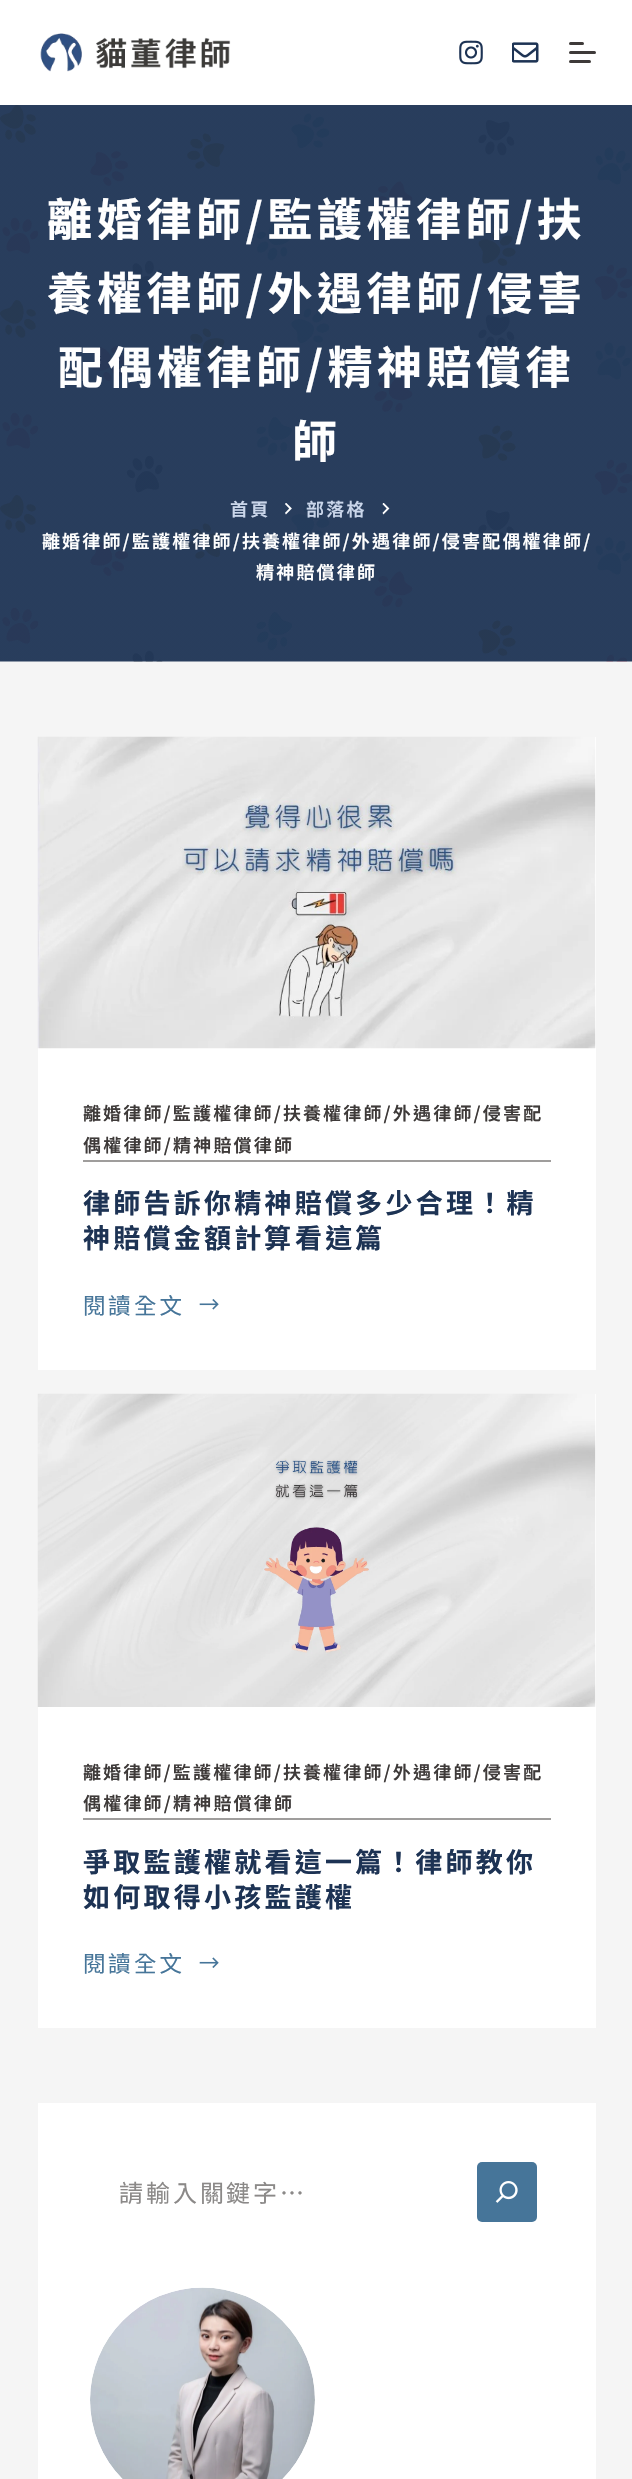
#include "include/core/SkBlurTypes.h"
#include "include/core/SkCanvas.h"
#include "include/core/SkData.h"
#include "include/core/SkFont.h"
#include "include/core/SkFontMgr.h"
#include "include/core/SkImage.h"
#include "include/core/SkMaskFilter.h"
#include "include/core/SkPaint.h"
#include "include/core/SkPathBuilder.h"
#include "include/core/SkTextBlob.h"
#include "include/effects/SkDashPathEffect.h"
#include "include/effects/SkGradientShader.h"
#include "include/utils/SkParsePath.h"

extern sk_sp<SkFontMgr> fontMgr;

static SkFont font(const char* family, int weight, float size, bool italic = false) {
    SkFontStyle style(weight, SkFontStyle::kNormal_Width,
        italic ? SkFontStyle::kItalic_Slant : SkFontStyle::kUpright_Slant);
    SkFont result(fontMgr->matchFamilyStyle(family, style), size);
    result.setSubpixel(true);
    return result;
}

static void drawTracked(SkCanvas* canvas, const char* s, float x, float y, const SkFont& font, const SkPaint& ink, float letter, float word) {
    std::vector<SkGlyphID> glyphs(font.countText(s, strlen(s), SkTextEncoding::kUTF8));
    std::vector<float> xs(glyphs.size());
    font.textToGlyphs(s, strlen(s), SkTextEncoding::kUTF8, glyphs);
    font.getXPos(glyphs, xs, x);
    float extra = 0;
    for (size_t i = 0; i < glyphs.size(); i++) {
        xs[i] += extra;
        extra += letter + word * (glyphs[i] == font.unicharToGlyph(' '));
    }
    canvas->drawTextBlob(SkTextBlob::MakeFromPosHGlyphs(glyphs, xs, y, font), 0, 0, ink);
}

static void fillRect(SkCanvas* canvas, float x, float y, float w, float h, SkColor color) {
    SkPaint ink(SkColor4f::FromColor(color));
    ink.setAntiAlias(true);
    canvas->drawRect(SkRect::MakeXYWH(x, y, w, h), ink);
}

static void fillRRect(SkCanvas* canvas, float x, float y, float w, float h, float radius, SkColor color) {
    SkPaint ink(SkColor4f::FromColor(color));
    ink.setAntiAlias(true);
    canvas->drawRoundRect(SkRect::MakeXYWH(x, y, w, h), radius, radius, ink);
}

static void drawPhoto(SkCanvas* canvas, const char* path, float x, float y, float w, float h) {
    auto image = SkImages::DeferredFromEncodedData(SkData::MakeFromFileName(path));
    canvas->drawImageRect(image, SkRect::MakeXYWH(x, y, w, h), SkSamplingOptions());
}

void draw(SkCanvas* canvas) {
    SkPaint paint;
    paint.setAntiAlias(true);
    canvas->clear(0xFFF5F5F5);
    fillRect(canvas, 0, 0, 632, 105, 0xFFFFFFFF);
    drawPhoto(canvas, "assets/img1.png", 40, 33, 191, 39);
    drawPhoto(canvas, "assets/img2.png", 459, 40, 24, 25);
    drawPhoto(canvas, "assets/img3.png", 512, 42, 27, 21);
    fillRRect(canvas, 569, 42, 15, 3, 1.5f, 0xFF3E3A39);
    fillRRect(canvas, 569, 51, 27, 3, 1.5f, 0xFF3E3A39);
    fillRRect(canvas, 569, 60, 22, 3, 1.5f, 0xFF3E3A39);
    drawPhoto(canvas, "assets/img4.png", 0, 105, 632, 557);
    SkFont font1 = font("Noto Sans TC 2", 700, 45);
    paint.setColor(0xFFFFFFFF);
    drawTracked(canvas, "離", 47, 236, font1, paint, 4.5f, 0);
    SkFont font2 = font("Noto Sans TC", 700, 45);
    drawTracked(canvas, "婚律師/監護權律師/扶", 97, 236, font2, paint, 4.5f, 0);
    drawTracked(canvas, "養", 47, 310, font1, paint, 4.5f, 0);
    drawTracked(canvas, "權律師/外遇律師/侵害", 97, 310, font2, paint, 4.5f, 0);
    drawTracked(canvas, "配偶權律師/精神賠償律", 58, 384, font2, paint, 4.5f, 0);
    drawTracked(canvas, "師", 292, 458, font2, paint, 4.5f, 0);
    SkFont font3 = font("Noto Sans TC 2", 600, 18);
    paint.setColor(0xFFCAD6EA);
    drawTracked(canvas, "首頁", 230, 516, font3, paint, 2.2f, 0);
    drawPhoto(canvas, "assets/img5.png", 285, 503, 7, 12);
    SkFont font4 = font("Noto Sans TC", 600, 18);
    drawTracked(canvas, "部落格", 306, 516, font4, paint, 2.2f, 0);
    drawPhoto(canvas, "assets/img6.png", 382, 503, 8, 12);
    paint.setColor(0xFFFFFFFF);
    drawTracked(canvas, "離", 42, 548, font4, paint, 2.2f, 0);
    drawTracked(canvas, "婚律師/監護權律師/扶", 62, 548, font3, paint, 2.2f, 0);
    drawTracked(canvas, "養", 262, 548, font4, paint, 2.2f, 0);
    drawTracked(canvas, "權律師/外遇律師/侵害配偶權律師/", 282, 548, font3, paint, 2.2f, 0);
    drawTracked(canvas, "精神賠償律師", 256, 579, font3, paint, 2.2f, 0);
    fillRect(canvas, 38, 737, 558, 633, 0xFFFFFFFF);
    drawPhoto(canvas, "assets/img7.png", 37, 736, 559, 313);
    paint.setColor(0xFF3E3A39);
    drawTracked(canvas, "離", 83, 1120, font4, paint, 2.2f, 0);
    drawTracked(canvas, "婚律師/監護權律師/扶", 103, 1120, font3, paint, 2.2f, 0);
    drawTracked(canvas, "養", 303, 1120, font4, paint, 2.2f, 0);
    drawTracked(canvas, "權律師/外遇律師/侵害配", 323, 1120, font3, paint, 2.2f, 0);
    drawTracked(canvas, "偶權律師/精神賠償律師", 83, 1152, font3, paint, 2.2f, 0);
    fillRect(canvas, 83, 1160, 468, 2, 0xFF9F9D9C);
    SkFont font5 = font("Noto Sans TC", 700, 27);
    paint.setColor(0xFF1D3354);
    drawTracked(canvas, "律師告訴你精神賠償多少合理！精", 83, 1213, font5, paint, 3.25f, 0);
    drawTracked(canvas, "神賠償金額計", 83, 1248, font5, paint, 3.25f, 0);
    SkFont font6 = font("Noto Sans TC 2", 700, 27);
    drawTracked(canvas, "算", 264, 1248, font6, paint, 3.25f, 0);
    drawTracked(canvas, "看這", 295, 1248, font5, paint, 3.25f, 0);
    drawTracked(canvas, "篇", 355, 1248, font6, paint, 3.25f, 0);
    SkFont font7 = font("Noto Sans CJK TC", 400, 22.5f);
    paint.setColor(0xFF467599);
    drawTracked(canvas, "閱", 83, 1314, font7, paint, 3, 0);
    SkFont font8 = font("Noto Sans TC", 400, 22.5f);
    drawTracked(canvas, "讀", 108, 1314, font8, paint, 3, 0);
    drawTracked(canvas, "全文", 134, 1314, font7, paint, 3, 0);
    drawPhoto(canvas, "assets/img8.png", 199, 1299, 20, 11);
    fillRect(canvas, 38, 1394, 558, 634, 0xFFFFFFFF);
    drawPhoto(canvas, "assets/img9.png", 37, 1393, 559, 314);
    paint.setColor(0xFF3E3A39);
    drawTracked(canvas, "離", 83, 1779, font4, paint, 2.2f, 0);
    drawTracked(canvas, "婚律師/監護權律師/扶", 103, 1779, font3, paint, 2.2f, 0);
    drawTracked(canvas, "養", 303, 1779, font4, paint, 2.2f, 0);
    drawTracked(canvas, "權律師/外遇律師/侵害配", 323, 1779, font3, paint, 2.2f, 0);
    drawTracked(canvas, "偶權律師/精神賠償律師", 83, 1810, font3, paint, 2.2f, 0);
    fillRect(canvas, 83, 1818, 468, 2, 0xFF9F9D9C);
    paint.setColor(0xFF1D3354);
    drawTracked(canvas, "爭取監護權就看這一", 83, 1872, font5, paint, 3.25f, 0);
    drawTracked(canvas, "篇", 355, 1872, font6, paint, 3.25f, 0);
    drawTracked(canvas, "！律師教你", 385, 1872, font5, paint, 3.25f, 0);
    drawTracked(canvas, "如何取得小孩監護權", 83, 1907, font5, paint, 3.25f, 0);
    paint.setColor(0xFF467599);
    drawTracked(canvas, "閱", 83, 1972, font7, paint, 3, 0);
    drawTracked(canvas, "讀", 108, 1972, font8, paint, 3, 0);
    drawTracked(canvas, "全文", 134, 1972, font7, paint, 3, 0);
    drawPhoto(canvas, "assets/img10.png", 199, 1957, 20, 11);
    fillRect(canvas, 38, 2103, 558, 376, 0xFFFFFFFF);
    SkFont font9 = font("Noto Sans CJK TC", 400, 24);
    paint.setColor(0xFF8B8988);
    drawTracked(canvas, "請輸入關", 119, 2202, font9, paint, 3, 0);
    SkFont font10 = font("Noto Sans TC", 400, 24);
    drawTracked(canvas, "鍵", 226, 2202, font10, paint, 3, 0);
    drawTracked(canvas, "字…", 253, 2202, font9, paint, 3, 0);
    fillRRect(canvas, 477, 2162, 60, 60, 5, 0xFF467599);
    drawPhoto(canvas, "assets/img11.png", 495, 2181, 23, 22);
    drawPhoto(canvas, "assets/img12.png", 90, 2287, 225, 192);
}
